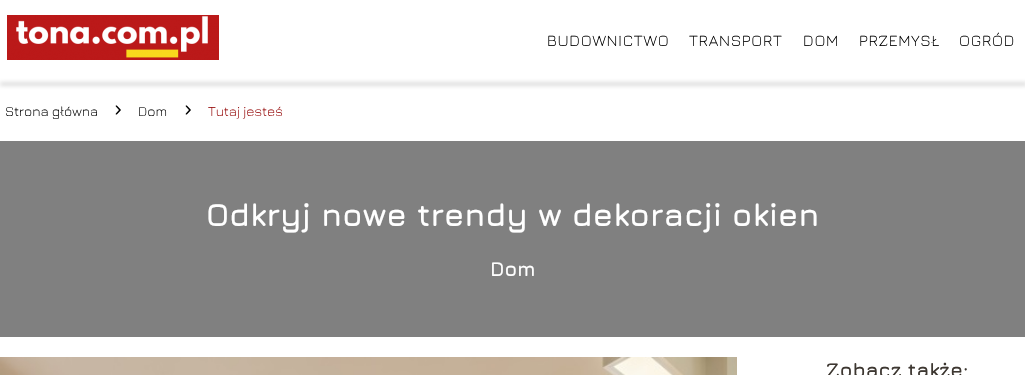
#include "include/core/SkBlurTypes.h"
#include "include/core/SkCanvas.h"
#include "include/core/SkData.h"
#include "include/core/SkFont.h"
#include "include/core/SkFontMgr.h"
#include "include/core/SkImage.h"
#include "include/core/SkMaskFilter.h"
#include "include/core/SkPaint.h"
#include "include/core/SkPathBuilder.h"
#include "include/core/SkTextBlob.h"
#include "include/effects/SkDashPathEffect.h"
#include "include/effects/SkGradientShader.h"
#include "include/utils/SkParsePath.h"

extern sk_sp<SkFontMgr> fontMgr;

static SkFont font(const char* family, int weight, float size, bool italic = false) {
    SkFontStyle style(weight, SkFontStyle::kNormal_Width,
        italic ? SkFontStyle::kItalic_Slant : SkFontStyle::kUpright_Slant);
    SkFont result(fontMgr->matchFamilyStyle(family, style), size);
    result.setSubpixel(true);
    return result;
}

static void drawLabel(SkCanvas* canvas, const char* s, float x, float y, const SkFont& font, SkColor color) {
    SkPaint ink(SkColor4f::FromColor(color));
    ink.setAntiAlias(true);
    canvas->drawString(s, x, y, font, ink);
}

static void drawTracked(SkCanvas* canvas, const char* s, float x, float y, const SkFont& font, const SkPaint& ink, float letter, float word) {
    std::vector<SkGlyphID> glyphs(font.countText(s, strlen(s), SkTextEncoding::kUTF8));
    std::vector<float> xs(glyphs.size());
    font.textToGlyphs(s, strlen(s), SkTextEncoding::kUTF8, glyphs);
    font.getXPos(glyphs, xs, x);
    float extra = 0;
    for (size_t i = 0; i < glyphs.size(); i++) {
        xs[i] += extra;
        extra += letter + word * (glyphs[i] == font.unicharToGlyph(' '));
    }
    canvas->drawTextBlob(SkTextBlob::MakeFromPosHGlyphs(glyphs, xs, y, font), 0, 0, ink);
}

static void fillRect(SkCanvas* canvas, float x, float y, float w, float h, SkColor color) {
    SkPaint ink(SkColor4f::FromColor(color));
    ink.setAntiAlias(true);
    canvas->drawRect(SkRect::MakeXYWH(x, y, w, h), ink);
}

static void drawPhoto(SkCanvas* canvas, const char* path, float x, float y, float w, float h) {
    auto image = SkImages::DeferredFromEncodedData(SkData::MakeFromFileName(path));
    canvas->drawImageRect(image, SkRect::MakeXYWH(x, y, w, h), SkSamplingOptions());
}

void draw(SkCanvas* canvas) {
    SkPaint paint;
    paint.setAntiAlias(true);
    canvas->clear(0xFFFFFFFF);
    drawPhoto(canvas, "assets/img1.png", 7, 15, 212, 45);
    SkFont font1 = font("Jura", 300, 16);
    paint.setColor(0xFF000000);
    drawTracked(canvas, "BUDOWNICTWO", 547, 46, font1, paint, 0.75f, 0);
    drawTracked(canvas, "TRANSPORT", 689, 46, font1, paint, 0.75f, 0);
    drawTracked(canvas, "DOM", 803, 46, font1, paint, 0.75f, 0);
    drawTracked(canvas, "PRZEMYSŁ", 859, 46, font1, paint, 0.75f, 0);
    drawTracked(canvas, "OGRÓD", 959, 46, font1, paint, 0.75f, 0);
    paint.setColor(0x40000000);
    paint.setMaskFilter(SkMaskFilter::MakeBlur(kNormal_SkBlurStyle, 2));
    canvas->drawRect(SkRect::MakeXYWH(0, 83, 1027, 2), paint);
    paint.setMaskFilter(nullptr);
    SkFont font2 = font("Jura", 300, 14);
    drawLabel(canvas, "Strona główna", 5, 116, font2, 0xFF000000);
    drawPhoto(canvas, "assets/img2.png", 115, 105, 6, 10);
    drawLabel(canvas, "Dom", 138, 116, font2, 0xFF000000);
    drawPhoto(canvas, "assets/img2.png", 185, 105, 6, 10);
    drawLabel(canvas, "Tutaj jesteś", 208, 116, font2, 0xFF950808);
    fillRect(canvas, 0, 141, 1025, 196, 0xFF808080);
    SkFont font3 = font("Jura", 700, 32);
    drawLabel(canvas, "Odkryj nowe trendy w dekoracji okien", 206, 226, font3, 0xFFFFFFFF);
    SkFont font4 = font("Jura", 700, 20);
    drawLabel(canvas, "Dom", 490, 276, font4, 0xFFFFFFFF);
    drawPhoto(canvas, "assets/img3.png", 0, 357, 737, 18);
    drawLabel(canvas, "Zobacz także:", 826, 377, font4, 0xFF3D3731);
}
